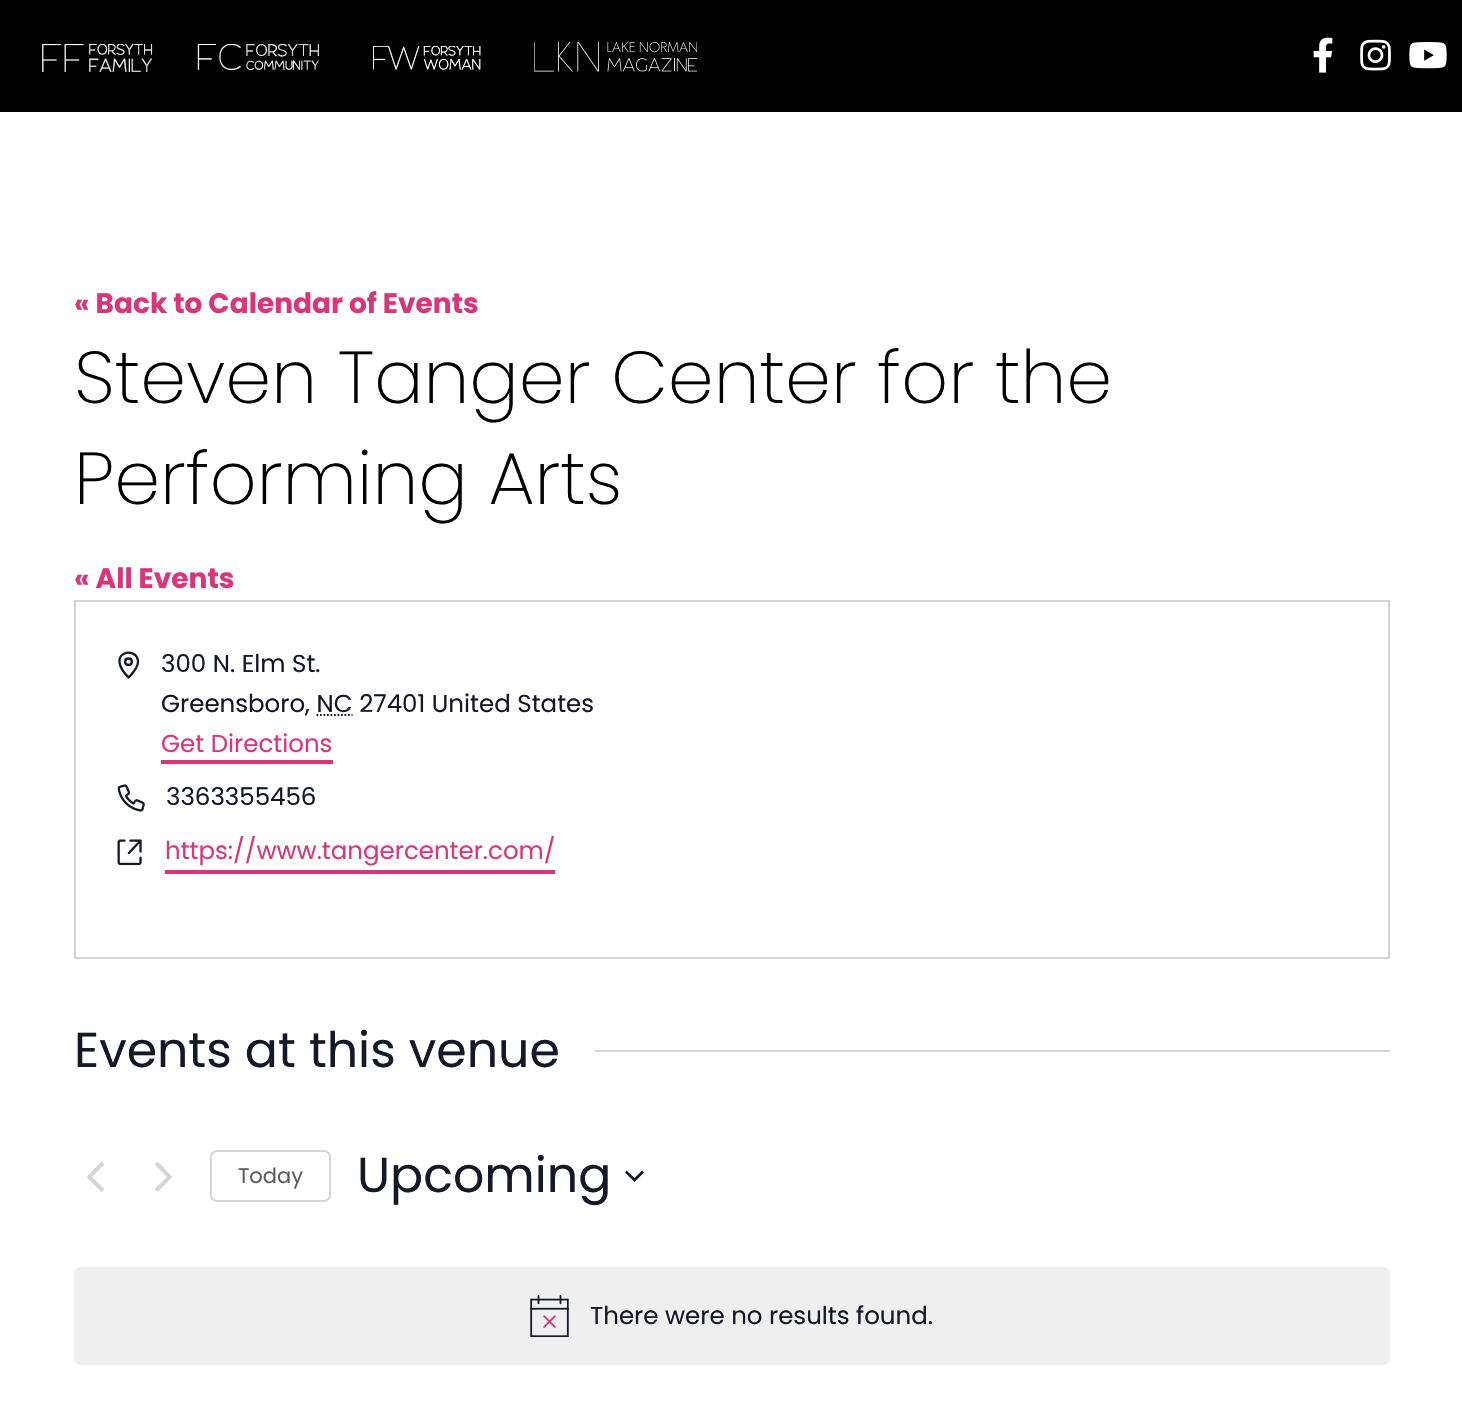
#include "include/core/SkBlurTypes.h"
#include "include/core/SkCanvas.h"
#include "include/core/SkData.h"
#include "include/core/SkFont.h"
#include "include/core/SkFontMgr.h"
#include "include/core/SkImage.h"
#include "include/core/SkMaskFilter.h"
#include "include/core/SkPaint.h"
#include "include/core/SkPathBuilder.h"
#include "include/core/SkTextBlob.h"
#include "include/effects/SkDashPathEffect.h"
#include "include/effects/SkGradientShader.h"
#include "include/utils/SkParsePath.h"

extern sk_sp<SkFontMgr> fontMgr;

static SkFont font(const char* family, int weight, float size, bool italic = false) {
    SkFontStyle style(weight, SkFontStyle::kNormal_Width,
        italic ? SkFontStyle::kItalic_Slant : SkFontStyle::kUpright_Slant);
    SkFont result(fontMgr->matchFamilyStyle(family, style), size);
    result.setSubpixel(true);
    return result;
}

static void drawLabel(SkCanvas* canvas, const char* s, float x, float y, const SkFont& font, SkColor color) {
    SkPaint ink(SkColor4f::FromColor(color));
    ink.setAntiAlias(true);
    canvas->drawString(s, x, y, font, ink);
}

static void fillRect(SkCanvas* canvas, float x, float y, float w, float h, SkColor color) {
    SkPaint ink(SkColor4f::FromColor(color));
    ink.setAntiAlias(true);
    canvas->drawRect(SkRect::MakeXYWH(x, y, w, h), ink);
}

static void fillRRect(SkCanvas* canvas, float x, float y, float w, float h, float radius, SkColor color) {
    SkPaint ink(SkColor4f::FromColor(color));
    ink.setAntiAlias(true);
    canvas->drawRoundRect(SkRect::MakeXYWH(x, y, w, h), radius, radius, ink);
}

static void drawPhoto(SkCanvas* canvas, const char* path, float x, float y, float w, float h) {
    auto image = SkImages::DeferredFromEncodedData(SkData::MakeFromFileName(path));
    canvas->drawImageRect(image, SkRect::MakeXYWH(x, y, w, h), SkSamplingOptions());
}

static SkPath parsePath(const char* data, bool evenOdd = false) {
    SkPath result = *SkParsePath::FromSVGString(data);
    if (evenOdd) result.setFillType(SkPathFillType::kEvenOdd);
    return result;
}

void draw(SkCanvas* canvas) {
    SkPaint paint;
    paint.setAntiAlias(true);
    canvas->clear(0xFFFFFFFF);
    fillRect(canvas, 0, 0, 1462, 112, 0xFF000000);
    drawPhoto(canvas, "assets/img1.png", 42, 44, 111, 28);
    drawPhoto(canvas, "assets/img2.png", 197, 44, 122, 26);
    drawPhoto(canvas, "assets/img3.png", 373, 46, 108, 24);
    drawPhoto(canvas, "assets/img4.png", 534, 42, 163, 30);
    drawPhoto(canvas, "assets/img5.png", 1313, 37, 20, 36);
    drawPhoto(canvas, "assets/img6.png", 1360, 39, 31, 32);
    drawPhoto(canvas, "assets/img7.png", 1409, 42, 38, 27);
    SkFont font1 = font("Poppins", 700, 28);
    drawLabel(canvas, "« Back to Calendar of Events", 74, 313, font1, 0xFFDA3579);
    SkFont font2 = font("Poppins", 200, 73.5f);
    drawLabel(canvas, "Steven Tanger Center for the", 74, 403, font2, 0xFF000000);
    drawLabel(canvas, "Performing Arts", 74, 504, font2, 0xFF000000);
    drawLabel(canvas, "« All Events", 74, 588, font1, 0xFFDA3579);
    paint.setStroke(true);
    paint.setStrokeWidth(2);
    paint.setColor(0xFFD5D5D5);
    canvas->drawRect(SkRect::MakeXYWH(75, 601, 1314, 357), paint);
    paint.setStrokeWidth(2.3f);
    paint.setStrokeCap(SkPaint::kRound_Cap);
    paint.setStrokeJoin(SkPaint::kRound_Join);
    paint.setColor(0xFF141827);
    canvas->drawPath(parsePath("M138 662C138 668 128.5 677.5 128.5 677.5C103.5 652 138 645 138 662ZM128.5 665C133 665 133 658.5 128.5 658.5C124 658.5 124 665 128.5 665Z"), paint);
    SkFont font3 = font("Poppins", 400, 24.5f);
    drawLabel(canvas, "300 N. Elm St.", 161, 672, font3, 0xFF141827);
    drawLabel(canvas, "Greensboro, NC 27401 United States", 161, 712, font3, 0xFF141827);
    paint.setStrokeWidth(1.8f);
    paint.setStrokeCap(SkPaint::kButt_Cap);
    paint.setStrokeJoin(SkPaint::kMiter_Join);
    paint.setPathEffect(SkDashPathEffect::Make({{1.75f, 1.75f}}, 0));
    canvas->drawPath(parsePath("M316.5 715H352.5"), paint);
    paint.setPathEffect(nullptr);
    drawLabel(canvas, "Get Directions", 161, 752, font3, 0xFFDA3579);
    fillRect(canvas, 161, 760, 172, 4, 0xFFDA3579);
    drawPhoto(canvas, "assets/img8.png", 117, 784, 28, 28);
    drawLabel(canvas, "3363355456", 166, 805, font3, 0xFF141827);
    drawPhoto(canvas, "assets/img9.png", 117, 839, 25, 27);
    fillRect(canvas, 165, 870, 390, 4, 0xFFDA3579);
    drawLabel(canvas, "https://www.tangercenter.com/", 165, 859, font3, 0xFFDA3579);
    SkFont font4 = font("Poppins", 400, 49);
    drawLabel(canvas, "Events at this venue", 74, 1067, font4, 0xFF141827);
    fillRect(canvas, 595, 1050, 795, 2, 0xFFD5D5D5);
    paint.setStroke(false);
    paint.setColor(0xFFD5D5D5);
    canvas->drawPath(parsePath("M104.5 1189L101.5 1192L86.5 1177L101.5 1161.5L104.5 1164.5L92 1177Z"), paint);
    canvas->drawPath(parsePath("M154.5 1164.5L157.5 1161.5L172.5 1177L157.5 1192L154.5 1189L167 1177Z"), paint);
    paint.setStroke(true);
    paint.setStrokeWidth(2);
    canvas->drawRoundRect(SkRect::MakeXYWH(211, 1151, 119, 50), 6, 6, paint);
    SkFont font5 = font("Poppins", 400, 21);
    drawLabel(canvas, "Today", 238, 1183, font5, 0xFF5D5D5D);
    drawLabel(canvas, "Upcoming", 357, 1192, font4, 0xFF141827);
    paint.setStroke(false);
    paint.setColor(0xFF141827);
    canvas->drawPath(parsePath("M626.5 1170.5L634.5 1178L642 1170.5L644 1172.5L634.5 1182L625 1172.5Z", true), paint);
    fillRRect(canvas, 74, 1267, 1316, 98, 7, 0xFFEFEFF0);
    drawPhoto(canvas, "assets/img10.png", 530, 1295, 39, 42);
    drawLabel(canvas, "There were no results found.", 590, 1324, font3, 0xFF141827);
}
